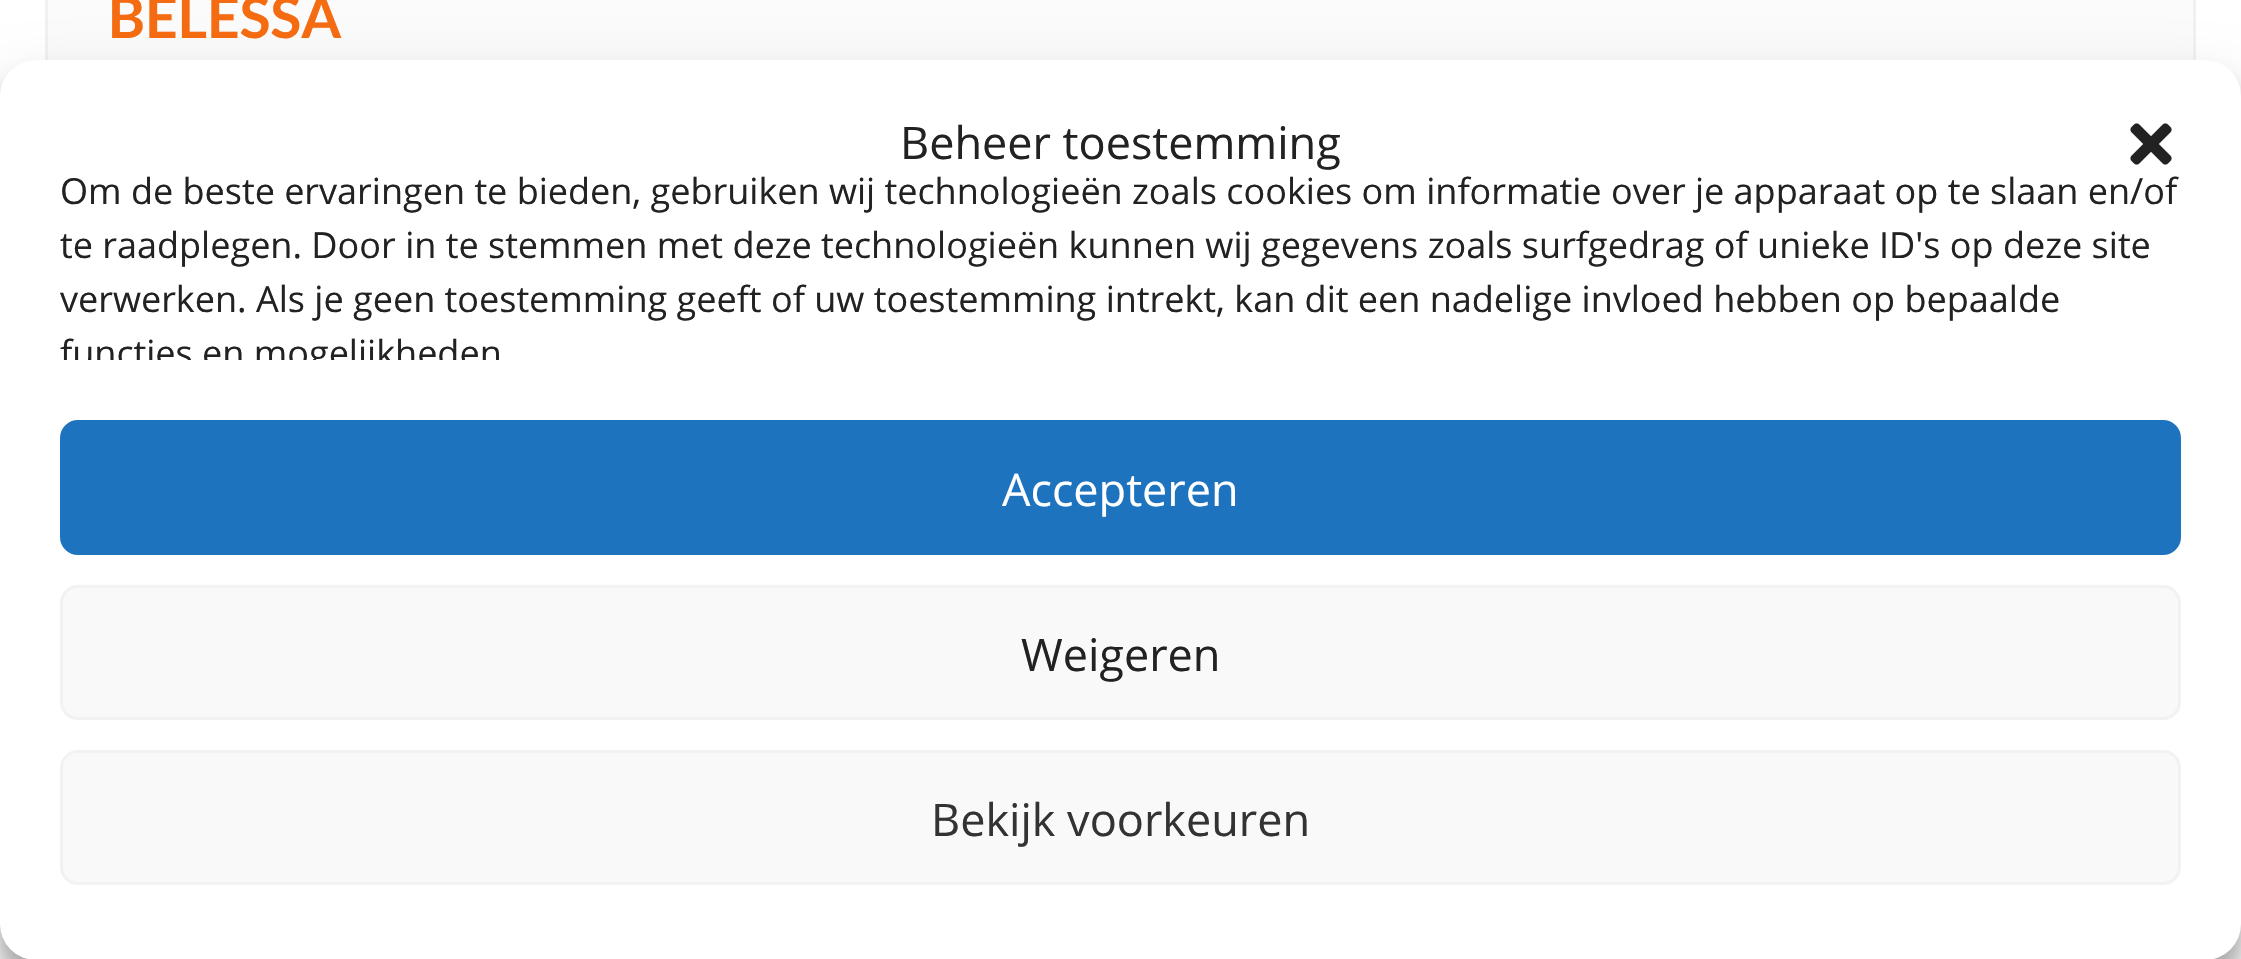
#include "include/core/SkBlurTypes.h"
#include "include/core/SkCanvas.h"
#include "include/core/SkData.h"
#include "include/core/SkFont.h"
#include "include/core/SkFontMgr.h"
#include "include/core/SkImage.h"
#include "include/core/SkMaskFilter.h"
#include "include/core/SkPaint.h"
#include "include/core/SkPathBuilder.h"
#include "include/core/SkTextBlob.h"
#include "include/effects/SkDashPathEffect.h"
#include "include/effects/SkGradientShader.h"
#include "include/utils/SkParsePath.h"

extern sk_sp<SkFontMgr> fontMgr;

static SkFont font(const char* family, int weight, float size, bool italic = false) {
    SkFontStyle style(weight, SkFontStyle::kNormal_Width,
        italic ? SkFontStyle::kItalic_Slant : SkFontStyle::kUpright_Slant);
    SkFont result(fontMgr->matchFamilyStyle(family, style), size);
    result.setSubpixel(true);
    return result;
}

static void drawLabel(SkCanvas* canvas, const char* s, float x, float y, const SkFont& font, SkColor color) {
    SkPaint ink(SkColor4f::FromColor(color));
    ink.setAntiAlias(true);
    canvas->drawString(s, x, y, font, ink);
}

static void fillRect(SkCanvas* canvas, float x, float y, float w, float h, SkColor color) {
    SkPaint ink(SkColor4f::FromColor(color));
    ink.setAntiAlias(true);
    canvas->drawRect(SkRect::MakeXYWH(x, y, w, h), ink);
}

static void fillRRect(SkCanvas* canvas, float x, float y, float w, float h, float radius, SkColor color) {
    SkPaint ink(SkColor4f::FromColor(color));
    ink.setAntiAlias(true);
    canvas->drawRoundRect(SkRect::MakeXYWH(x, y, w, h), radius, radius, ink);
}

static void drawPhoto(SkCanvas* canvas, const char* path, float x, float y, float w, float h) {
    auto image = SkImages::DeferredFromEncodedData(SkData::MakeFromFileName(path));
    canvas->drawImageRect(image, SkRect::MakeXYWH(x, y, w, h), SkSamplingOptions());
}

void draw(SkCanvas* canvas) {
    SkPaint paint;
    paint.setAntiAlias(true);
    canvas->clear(0xFFFFFFFF);
    fillRect(canvas, 48, 0, 2145, 60, 0xFFFBFBFB);
    paint.setStroke(true);
    paint.setStrokeWidth(3);
    paint.setColor(0xFFF1F1F1);
    canvas->drawRect(SkRect::MakeXYWH(46.5f, -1.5f, 2148, 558), paint);
    SkFont font1 = font("Lato", 700, 57);
    drawLabel(canvas, "BELESSA", 108, 38, font1, 0xFFF56B11);
    paint.setStroke(false);
    paint.setColor(0x3B000000);
    paint.setMaskFilter(SkMaskFilter::MakeBlur(kNormal_SkBlurStyle, 9));
    canvas->drawRoundRect(SkRect::MakeXYWH(0, 78, 2241, 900), 36, 36, paint);
    paint.setMaskFilter(nullptr);
    paint.setColor(0x30000000);
    paint.setMaskFilter(SkMaskFilter::MakeBlur(kNormal_SkBlurStyle, 30));
    canvas->drawRoundRect(SkRect::MakeXYWH(0, 90, 2241, 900), 36, 36, paint);
    paint.setMaskFilter(nullptr);
    fillRRect(canvas, 0, 60, 2241, 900, 36, 0xFFFFFFFF);
    SkFont font2 = font("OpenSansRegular", 400, 45);
    drawLabel(canvas, "Beheer toestemming", 900, 159, font2, 0xFF222222);
    drawPhoto(canvas, "assets/img1.png", 2130, 123, 42, 42);
    SkFont font3 = font("OpenSansRegular", 400, 36);
    drawLabel(canvas, "Om de beste ervaringen te bieden, gebruiken wij technologieën zoals cookies om informatie over je apparaat op te slaan en/of", 60, 204, font3, 0xFF222222);
    drawLabel(canvas, "te raadplegen. Door in te stemmen met deze technologieën kunnen wij gegevens zoals surfgedrag of unieke ID's op deze site", 60, 258, font3, 0xFF222222);
    drawLabel(canvas, "verwerken. Als je geen toestemming geeft of uw toestemming intrekt, kan dit een nadelige invloed hebben op bepaalde", 60, 312, font3, 0xFF222222);
    canvas->save();
    canvas->clipRect(SkRect::MakeXYWH(60, 165, 2121, 195));
    drawLabel(canvas, "functies en mogelijkheden", 60, 366, font3, 0xFF222222);
    canvas->restore();
    paint.setColor(0xFF1E73BE);
    canvas->drawRoundRect(SkRect::MakeXYWH(61.5f, 421.5f, 2118, 132), 16.5f, 16.5f, paint);
    paint.setStroke(true);
    canvas->drawRoundRect(SkRect::MakeXYWH(61.5f, 421.5f, 2118, 132), 16.5f, 16.5f, paint);
    drawLabel(canvas, "Accepteren", 1002, 506, font2, 0xFFFFFFFF);
    paint.setStroke(false);
    paint.setColor(0xFFF9F9F9);
    canvas->drawRoundRect(SkRect::MakeXYWH(61.5f, 586.5f, 2118, 132), 16.5f, 16.5f, paint);
    paint.setStroke(true);
    paint.setColor(0xFFF2F2F2);
    canvas->drawRoundRect(SkRect::MakeXYWH(61.5f, 586.5f, 2118, 132), 16.5f, 16.5f, paint);
    drawLabel(canvas, "Weigeren", 1021, 671, font2, 0xFF222222);
    paint.setStroke(false);
    paint.setColor(0xFFF9F9F9);
    canvas->drawRoundRect(SkRect::MakeXYWH(61.5f, 751.5f, 2118, 132), 16.5f, 16.5f, paint);
    paint.setStroke(true);
    paint.setColor(0xFFF2F2F2);
    canvas->drawRoundRect(SkRect::MakeXYWH(61.5f, 751.5f, 2118, 132), 16.5f, 16.5f, paint);
    drawLabel(canvas, "Bekijk voorkeuren", 931, 836, font2, 0xFF333333);
}
